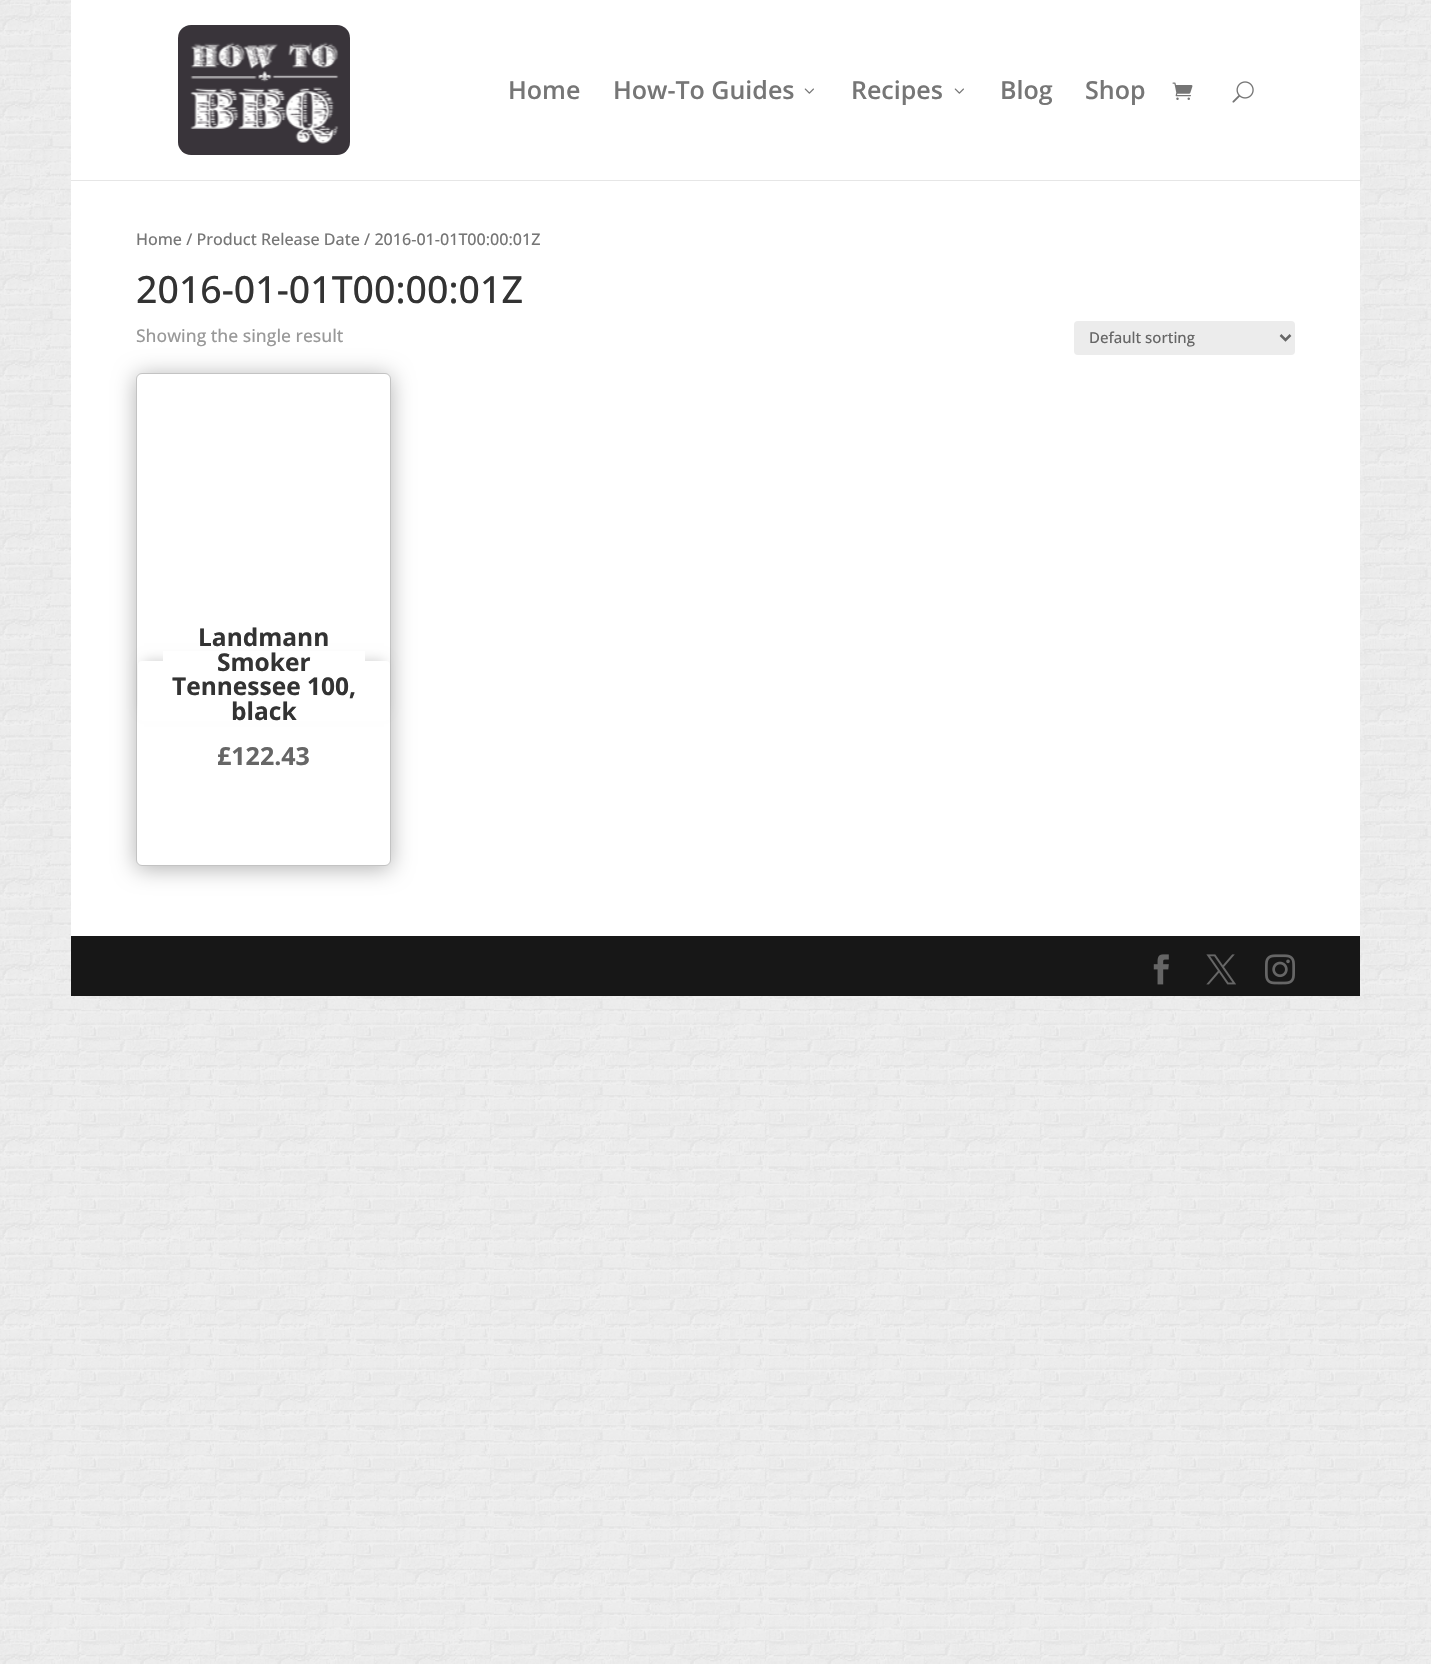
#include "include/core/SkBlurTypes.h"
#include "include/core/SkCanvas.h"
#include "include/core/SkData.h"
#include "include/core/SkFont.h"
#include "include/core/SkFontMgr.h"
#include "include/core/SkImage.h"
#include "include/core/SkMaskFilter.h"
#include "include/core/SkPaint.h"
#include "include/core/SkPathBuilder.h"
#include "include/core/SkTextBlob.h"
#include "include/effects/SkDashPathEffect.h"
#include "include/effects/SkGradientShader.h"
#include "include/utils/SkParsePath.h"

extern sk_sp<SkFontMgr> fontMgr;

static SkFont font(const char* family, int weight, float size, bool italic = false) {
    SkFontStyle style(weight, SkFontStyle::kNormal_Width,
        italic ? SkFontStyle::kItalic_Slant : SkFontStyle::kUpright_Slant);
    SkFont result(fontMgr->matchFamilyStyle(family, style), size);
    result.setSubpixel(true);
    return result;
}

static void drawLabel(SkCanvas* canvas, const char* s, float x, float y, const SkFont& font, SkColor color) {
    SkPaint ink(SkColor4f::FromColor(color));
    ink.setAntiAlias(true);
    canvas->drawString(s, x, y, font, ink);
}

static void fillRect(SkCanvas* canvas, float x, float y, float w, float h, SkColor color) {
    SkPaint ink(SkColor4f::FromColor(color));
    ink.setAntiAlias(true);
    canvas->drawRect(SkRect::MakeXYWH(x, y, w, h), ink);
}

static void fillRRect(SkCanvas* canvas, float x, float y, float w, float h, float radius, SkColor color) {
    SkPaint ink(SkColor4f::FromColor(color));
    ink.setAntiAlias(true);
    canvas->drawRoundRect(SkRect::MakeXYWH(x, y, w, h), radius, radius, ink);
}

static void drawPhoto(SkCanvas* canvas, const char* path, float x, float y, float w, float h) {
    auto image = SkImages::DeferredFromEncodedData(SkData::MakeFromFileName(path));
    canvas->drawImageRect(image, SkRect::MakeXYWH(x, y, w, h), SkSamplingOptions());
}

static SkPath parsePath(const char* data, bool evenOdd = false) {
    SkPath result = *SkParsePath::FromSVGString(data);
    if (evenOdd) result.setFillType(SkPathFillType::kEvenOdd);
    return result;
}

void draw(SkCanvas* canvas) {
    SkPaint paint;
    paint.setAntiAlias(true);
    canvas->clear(0xFFFFFFFF);
    drawPhoto(canvas, "assets/img1.png", 0, 0, 1431, 1664);
    paint.setColor(0xFFE6E6E6);
    canvas->drawPath(parsePath("M71 1V181H1360V180H71Z"), paint);
    fillRect(canvas, 71, 0, 1289, 180, 0xFFFFFFFF);
    fillRRect(canvas, 178, 25, 172, 130, 13, 0xFF39343A);
    drawPhoto(canvas, "assets/img2.png", 190, 42, 149, 102);
    SkFont font1 = font("Open Sans", 600, 25);
    drawLabel(canvas, "Home", 508, 99, font1, 0xFF767676);
    drawLabel(canvas, "How-To Guides", 613, 99, font1, 0xFF767676);
    drawPhoto(canvas, "assets/img3.png", 804, 88, 10, 6);
    drawLabel(canvas, "Recipes", 851, 99, font1, 0xFF767676);
    drawPhoto(canvas, "assets/img3.png", 954, 88, 10, 6);
    drawLabel(canvas, "Blog", 1000, 99, font1, 0xFF767676);
    drawLabel(canvas, "Shop", 1085, 99, font1, 0xFF767676);
    drawPhoto(canvas, "assets/img4.png", 1172, 82, 21, 18);
    drawPhoto(canvas, "assets/img5.png", 1232, 81, 22, 22);
    fillRect(canvas, 71, 181, 1289, 755, 0xFFFFFFFF);
    SkFont font2 = font("Open Sans", 500, 16.1f);
    drawLabel(canvas, "Home / Product Release Date / 2016-01-01T00:00:01Z", 136, 245, font2, 0xFF767676);
    SkFont font3 = font("Open Sans", 500, 37.5f);
    drawLabel(canvas, "2016-01-01T00:00:01Z", 136, 303, font3, 0xFF333333);
    SkFont font4 = font("Open Sans", 500, 17.5f);
    drawLabel(canvas, "Showing the single result", 136, 342, font4, 0xFF999999);
    fillRRect(canvas, 1074, 321, 221, 34, 4, 0xFFECECEC);
    paint.setStroke(true);
    paint.setStrokeWidth(2.5f);
    paint.setColor(0xFF666666);
    canvas->drawPath(parsePath("M1280.5 335L1285.5 340L1290.5 335"), paint);
    SkFont font5 = font("Open Sans", 500, 15);
    drawLabel(canvas, "Default sorting", 1089, 343, font5, 0xFF666666);
    paint.setStroke(false);
    paint.setColor(0x4D000000);
    paint.setMaskFilter(SkMaskFilter::MakeBlur(kNormal_SkBlurStyle, 11));
    canvas->drawRoundRect(SkRect::MakeXYWH(136, 375, 255, 494), 6, 6, paint);
    paint.setMaskFilter(nullptr);
    paint.setColor(0xFFFFFFFF);
    canvas->drawRoundRect(SkRect::MakeXYWH(136.5f, 373.5f, 254, 492), 5.5f, 5.5f, paint);
    paint.setStroke(true);
    paint.setStrokeWidth(1);
    paint.setColor(0xFFC3C3C3);
    canvas->drawRoundRect(SkRect::MakeXYWH(136.5f, 373.5f, 254, 492), 5.5f, 5.5f, paint);
    paint.setStroke(false);
    paint.setColor(0x33000000);
    paint.setMaskFilter(SkMaskFilter::MakeBlur(kNormal_SkBlurStyle, 6));
    canvas->drawRect(SkRect::MakeXYWH(144, 661, 240, 48), paint);
    paint.setMaskFilter(nullptr);
    fillRect(canvas, 163, 651, 202, 10, 0xFFFFFFFF);
    SkFont font6 = font("Open Sans", 700, 24.5f);
    drawLabel(canvas, "Landmann", 198, 646, font6, 0xFF333333);
    fillRRect(canvas, 138, 661, 252, 60, 4, 0xFFFFFFFF);
    drawLabel(canvas, "Smoker", 217, 671, font6, 0xFF333333);
    drawLabel(canvas, "Tennessee 100,", 172, 695, font6, 0xFF333333);
    drawLabel(canvas, "black", 231, 720, font6, 0xFF333333);
    SkFont font7 = font("Open Sans", 700, 25);
    drawLabel(canvas, "£122.43", 217, 765, font7, 0xFF666666);
    fillRect(canvas, 71, 936, 1289, 60, 0xFF171717);
    drawPhoto(canvas, "assets/img6.png", 1153, 954, 16, 31);
    drawPhoto(canvas, "assets/img7.png", 1206, 954, 30, 31);
    drawPhoto(canvas, "assets/img8.png", 1265, 954, 30, 31);
}
